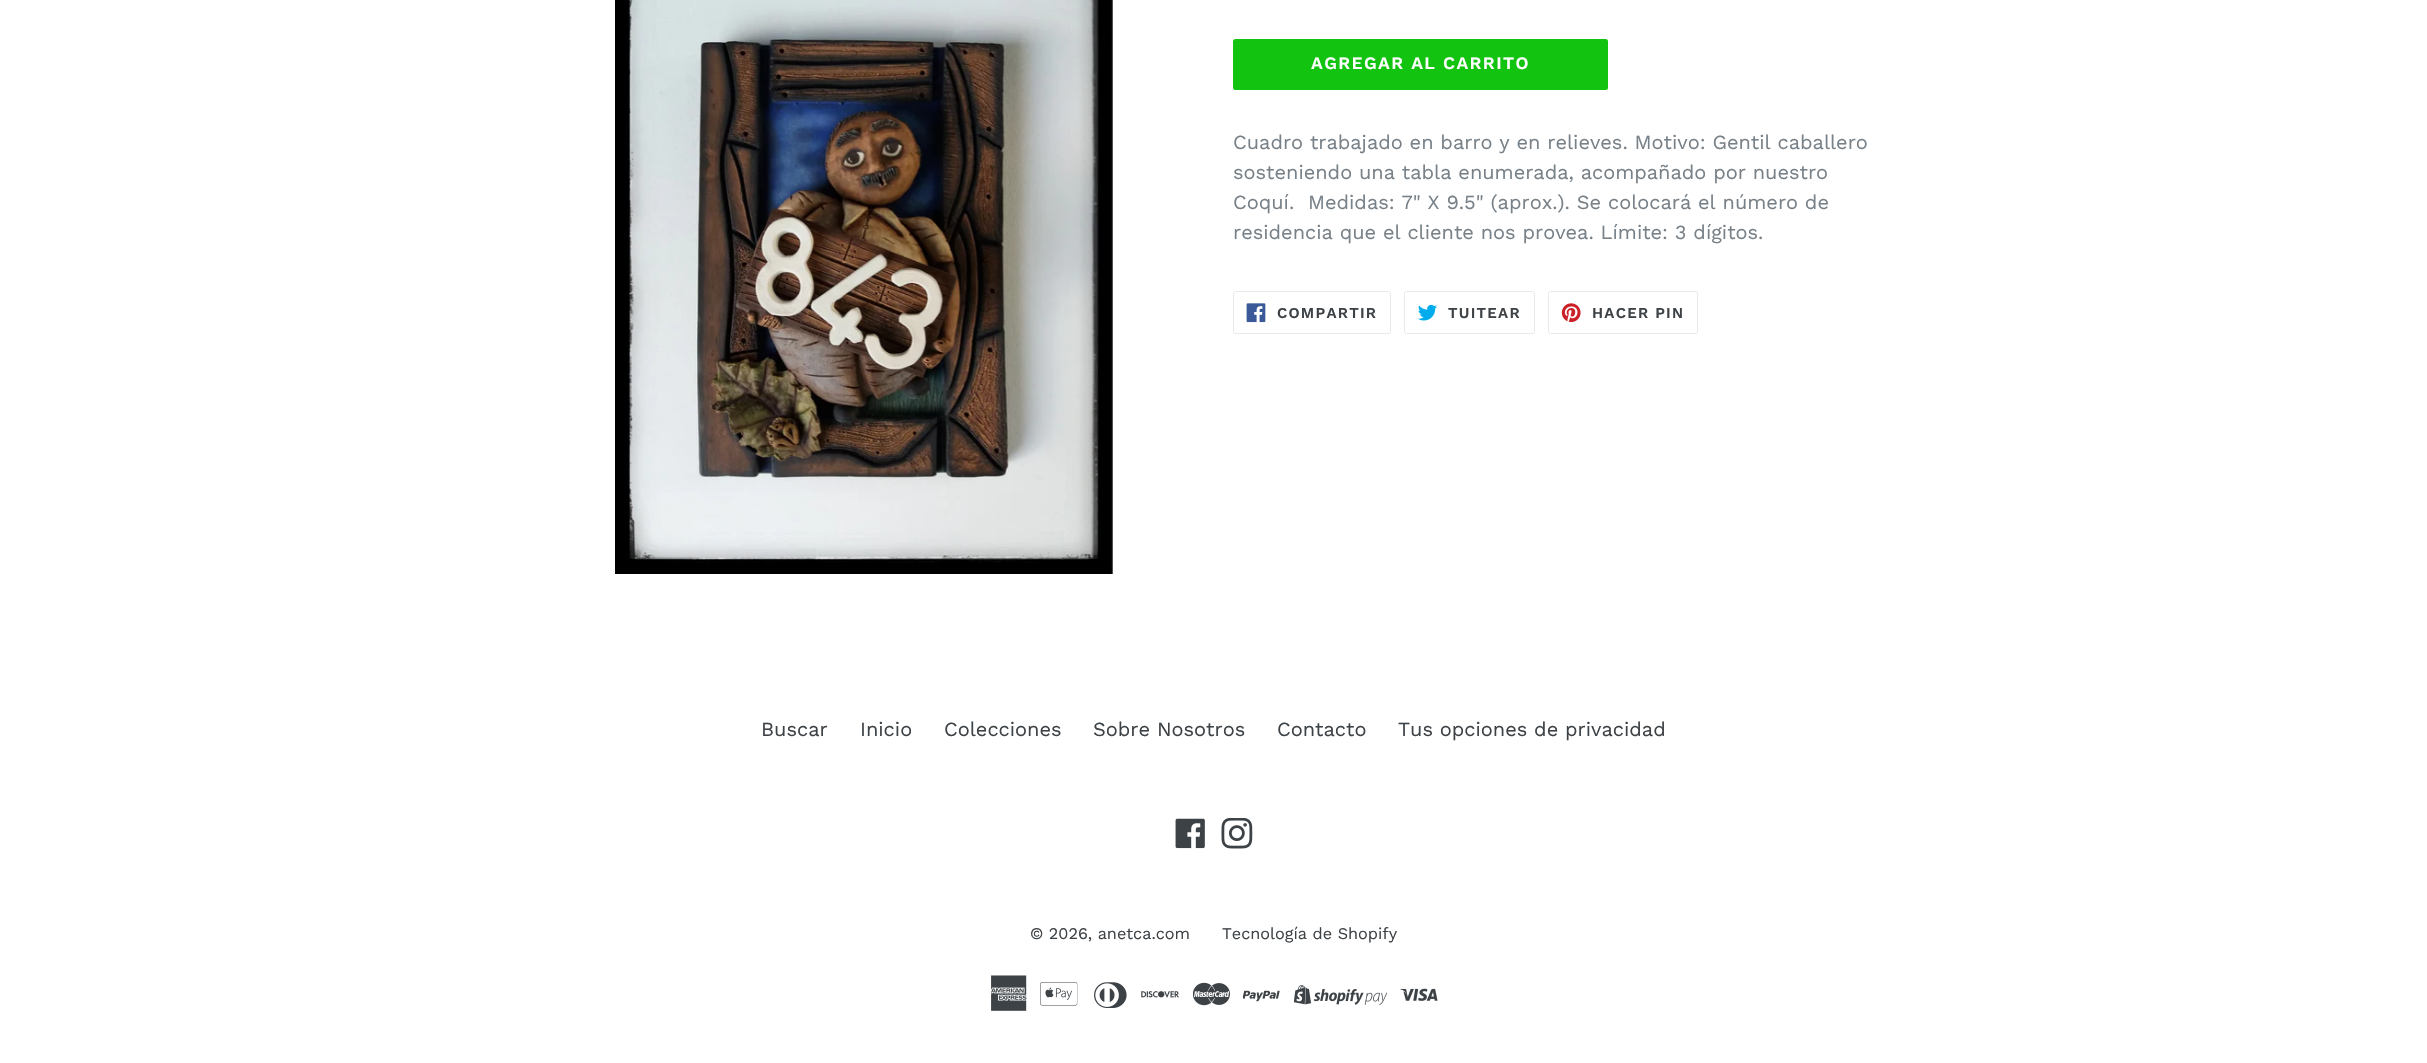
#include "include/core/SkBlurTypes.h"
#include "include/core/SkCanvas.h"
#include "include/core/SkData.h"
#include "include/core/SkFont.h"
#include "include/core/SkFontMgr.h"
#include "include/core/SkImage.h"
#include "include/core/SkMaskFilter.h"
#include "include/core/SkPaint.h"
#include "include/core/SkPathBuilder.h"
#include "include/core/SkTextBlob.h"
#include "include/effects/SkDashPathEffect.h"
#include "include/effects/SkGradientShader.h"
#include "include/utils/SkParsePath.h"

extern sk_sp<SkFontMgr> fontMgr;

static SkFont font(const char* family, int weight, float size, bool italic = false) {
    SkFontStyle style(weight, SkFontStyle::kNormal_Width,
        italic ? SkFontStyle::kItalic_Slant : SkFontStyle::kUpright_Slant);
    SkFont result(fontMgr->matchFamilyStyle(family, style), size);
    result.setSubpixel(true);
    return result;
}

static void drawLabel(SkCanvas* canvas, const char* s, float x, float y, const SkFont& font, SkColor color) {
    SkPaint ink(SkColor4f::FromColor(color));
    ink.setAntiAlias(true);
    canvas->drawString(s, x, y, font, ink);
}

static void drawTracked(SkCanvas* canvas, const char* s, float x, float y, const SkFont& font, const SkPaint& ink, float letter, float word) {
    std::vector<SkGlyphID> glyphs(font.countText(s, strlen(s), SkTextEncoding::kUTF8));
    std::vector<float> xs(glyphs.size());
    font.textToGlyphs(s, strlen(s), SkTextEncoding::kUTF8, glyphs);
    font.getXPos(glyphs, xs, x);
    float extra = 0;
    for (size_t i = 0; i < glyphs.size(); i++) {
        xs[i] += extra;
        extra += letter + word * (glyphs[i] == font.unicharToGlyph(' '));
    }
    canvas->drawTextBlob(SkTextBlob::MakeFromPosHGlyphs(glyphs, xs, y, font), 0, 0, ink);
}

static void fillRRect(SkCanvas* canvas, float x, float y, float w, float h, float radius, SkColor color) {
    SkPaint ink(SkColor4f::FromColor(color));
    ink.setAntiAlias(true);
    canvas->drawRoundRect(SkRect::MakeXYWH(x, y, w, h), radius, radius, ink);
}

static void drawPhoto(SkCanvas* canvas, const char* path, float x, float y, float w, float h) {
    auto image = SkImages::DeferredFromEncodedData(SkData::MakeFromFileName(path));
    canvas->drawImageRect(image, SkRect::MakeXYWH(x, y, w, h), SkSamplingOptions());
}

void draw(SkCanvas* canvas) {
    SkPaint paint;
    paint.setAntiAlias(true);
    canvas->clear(0xFFFFFFFF);
    drawPhoto(canvas, "assets/img1.png", 615, 0, 498, 574);
    fillRRect(canvas, 1233, 39, 375, 51, 2.5f, 0xFF12C30F);
    SkFont font1 = font("Work Sans", 600, 17.5f);
    paint.setColor(0xFFFFFFFF);
    drawTracked(canvas, "AGREGAR AL CARRITO", 1311, 69, font1, paint, 1.4f, 0);
    SkFont font2 = font("Work Sans", 400, 20);
    drawLabel(canvas, "Cuadro trabajado en barro y en relieves. Motivo: Gentil caballero", 1233, 149, font2, 0xFF788188);
    drawLabel(canvas, "sosteniendo una tabla enumerada, acompañado por nuestro", 1233, 179, font2, 0xFF788188);
    drawLabel(canvas, "Coquí.  Medidas: 7\" X 9.5\" (aprox.). Se colocará el número de", 1233, 209, font2, 0xFF788188);
    drawLabel(canvas, "residencia que el cliente nos provea. Límite: 3 dígitos.", 1233, 239, font2, 0xFF788188);
    paint.setStroke(true);
    paint.setStrokeWidth(1);
    paint.setColor(0xFFE8E9EB);
    canvas->drawRoundRect(SkRect::MakeXYWH(1233.5f, 291.5f, 157, 42), 2, 2, paint);
    drawPhoto(canvas, "assets/img2.png", 1246, 303, 20, 20);
    SkFont font3 = font("Work Sans", 600, 15);
    paint.setStroke(false);
    paint.setColor(0xFF3D4246);
    drawTracked(canvas, "COMPARTIR", 1277, 318, font3, paint, 1.25f, 0);
    paint.setStroke(true);
    paint.setColor(0xFFE8E9EB);
    canvas->drawRoundRect(SkRect::MakeXYWH(1404.5f, 291.5f, 130, 42), 2, 2, paint);
    drawPhoto(canvas, "assets/img3.png", 1418, 304, 19, 17);
    paint.setStroke(false);
    paint.setColor(0xFF3D4246);
    drawTracked(canvas, "TUITEAR", 1448, 318, font3, paint, 1.25f, 0);
    paint.setStroke(true);
    paint.setColor(0xFFE8E9EB);
    canvas->drawRoundRect(SkRect::MakeXYWH(1548.5f, 291.5f, 149, 42), 2, 2, paint);
    drawPhoto(canvas, "assets/img4.png", 1561, 303, 20, 20);
    paint.setStroke(false);
    paint.setColor(0xFF3D4246);
    drawTracked(canvas, "HACER PIN", 1592, 318, font3, paint, 1.25f, 0);
    drawLabel(canvas, "Buscar", 761, 736, font2, 0xFF3D4246);
    drawLabel(canvas, "Inicio", 860, 736, font2, 0xFF3D4246);
    drawLabel(canvas, "Colecciones", 944, 736, font2, 0xFF3D4246);
    drawLabel(canvas, "Sobre Nosotros", 1093, 736, font2, 0xFF3D4246);
    drawLabel(canvas, "Contacto", 1277, 736, font2, 0xFF3D4246);
    drawLabel(canvas, "Tus opciones de privacidad", 1398, 736, font2, 0xFF3D4246);
    drawPhoto(canvas, "assets/img5.png", 1175, 818, 30, 31);
    drawPhoto(canvas, "assets/img6.png", 1221, 818, 32, 31);
    SkFont font4 = font("Work Sans", 400, 16.25f);
    drawLabel(canvas, "© 2026, anetca.com", 1030, 939, font4, 0xFF3D4246);
    drawLabel(canvas, "Tecnología de Shopify", 1222, 939, font4, 0xFF3D4246);
    drawPhoto(canvas, "assets/img7.png", 991, 975, 36, 36);
    drawPhoto(canvas, "assets/img8.png", 1040, 982, 38, 24);
    drawPhoto(canvas, "assets/img9.png", 1094, 982, 33, 26);
    drawPhoto(canvas, "assets/img10.png", 1141, 991, 38, 7);
    drawPhoto(canvas, "assets/img11.png", 1193, 982, 37, 24);
    drawPhoto(canvas, "assets/img12.png", 1243, 990, 37, 12);
    drawPhoto(canvas, "assets/img13.png", 1294, 985, 94, 20);
    drawPhoto(canvas, "assets/img14.png", 1400, 988, 38, 13);
}
